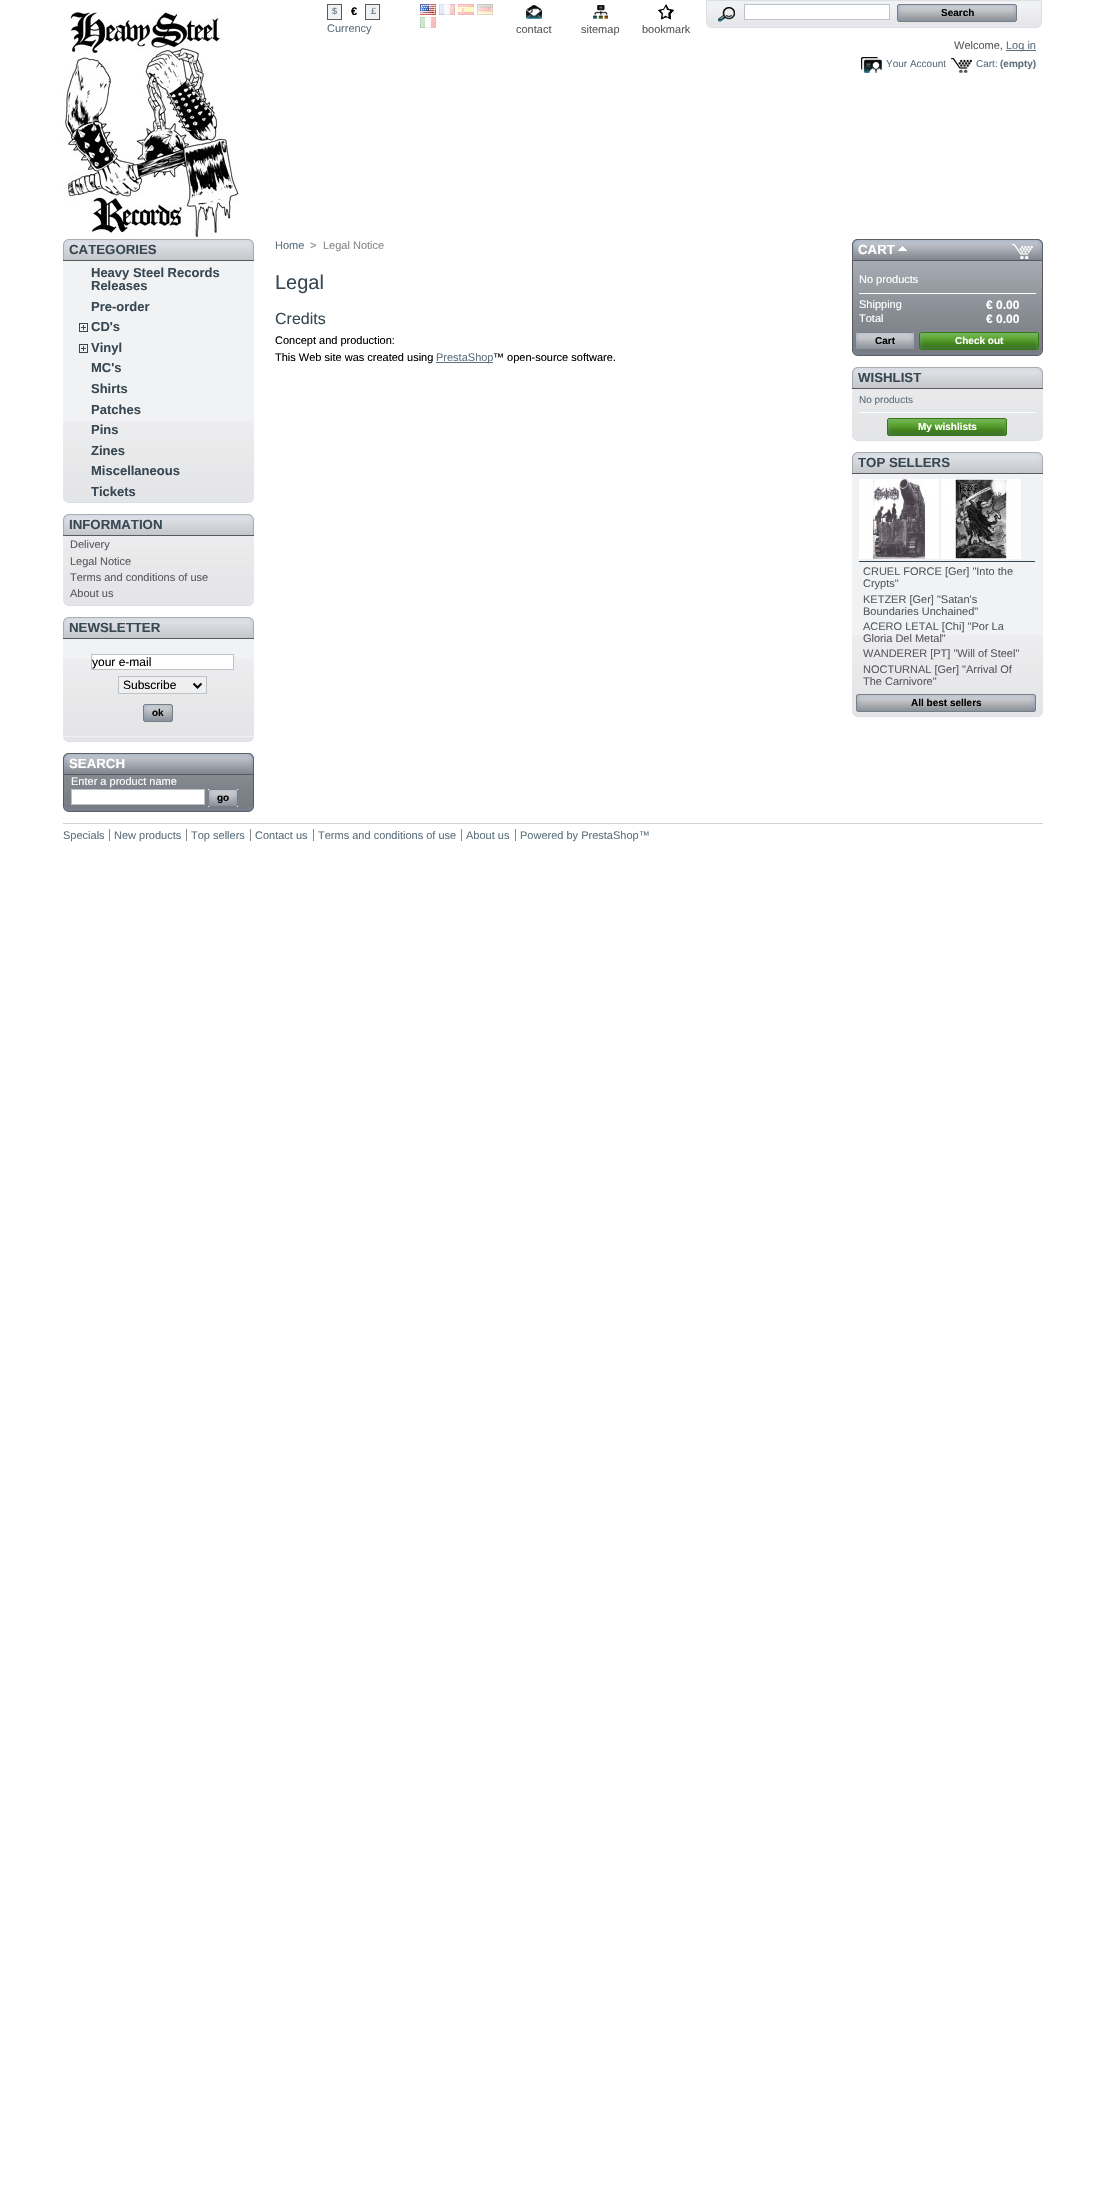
#include "include/core/SkBlurTypes.h"
#include "include/core/SkCanvas.h"
#include "include/core/SkData.h"
#include "include/core/SkFont.h"
#include "include/core/SkFontMgr.h"
#include "include/core/SkImage.h"
#include "include/core/SkMaskFilter.h"
#include "include/core/SkPaint.h"
#include "include/core/SkPathBuilder.h"
#include "include/core/SkTextBlob.h"
#include "include/effects/SkDashPathEffect.h"
#include "include/effects/SkGradientShader.h"
#include "include/utils/SkParsePath.h"

extern sk_sp<SkFontMgr> fontMgr;

static SkFont font(const char* family, int weight, float size, bool italic = false) {
    SkFontStyle style(weight, SkFontStyle::kNormal_Width,
        italic ? SkFontStyle::kItalic_Slant : SkFontStyle::kUpright_Slant);
    SkFont result(fontMgr->matchFamilyStyle(family, style), size);
    result.setSubpixel(true);
    return result;
}

static void drawLabel(SkCanvas* canvas, const char* s, float x, float y, const SkFont& font, SkColor color) {
    SkPaint ink(SkColor4f::FromColor(color));
    ink.setAntiAlias(true);
    canvas->drawString(s, x, y, font, ink);
}

static void fillRect(SkCanvas* canvas, float x, float y, float w, float h, SkColor color) {
    SkPaint ink(SkColor4f::FromColor(color));
    ink.setAntiAlias(true);
    canvas->drawRect(SkRect::MakeXYWH(x, y, w, h), ink);
}

static void drawPhoto(SkCanvas* canvas, const char* path, float x, float y, float w, float h) {
    auto image = SkImages::DeferredFromEncodedData(SkData::MakeFromFileName(path));
    canvas->drawImageRect(image, SkRect::MakeXYWH(x, y, w, h), SkSamplingOptions());
}

static SkPath parsePath(const char* data, bool evenOdd = false) {
    SkPath result = *SkParsePath::FromSVGString(data);
    if (evenOdd) result.setFillType(SkPathFillType::kEvenOdd);
    return result;
}

void draw(SkCanvas* canvas) {
    SkPaint paint;
    paint.setAntiAlias(true);
    canvas->clear(0xFFFFFFFF);
    drawPhoto(canvas, "assets/img1.png", 63, 11, 176, 228);
    paint.setColor(0xFFF1F2F4);
    canvas->drawRect(SkRect::MakeXYWH(327.5f, 4.5f, 14, 15), paint);
    paint.setStroke(true);
    paint.setStrokeWidth(1);
    paint.setColor(0xFF595A5E);
    canvas->drawRect(SkRect::MakeXYWH(327.5f, 4.5f, 14, 15), paint);
    SkFont font1 = font("Liberation Sans", 400, 9);
    drawLabel(canvas, "$", 332, 14, font1, 0xFF5D717E);
    SkFont font2 = font("Liberation Sans", 700, 11);
    drawLabel(canvas, "€", 351, 15, font2, 0xFF000000);
    paint.setStroke(false);
    paint.setColor(0xFFF1F2F4);
    canvas->drawRect(SkRect::MakeXYWH(365.5f, 4.5f, 14, 15), paint);
    paint.setStroke(true);
    paint.setColor(0xFF595A5E);
    canvas->drawRect(SkRect::MakeXYWH(365.5f, 4.5f, 14, 15), paint);
    drawLabel(canvas, "£", 371, 14, font1, 0xFF5D717E);
    SkFont font3 = font("Liberation Sans", 400, 11);
    drawLabel(canvas, "Currency", 327, 32, font3, 0xFF5D717E);
    drawPhoto(canvas, "assets/img2.png", 420, 4, 16, 11);
    drawPhoto(canvas, "assets/img3.png", 439, 4, 16, 11);
    drawPhoto(canvas, "assets/img4.png", 458, 4, 16, 11);
    drawPhoto(canvas, "assets/img5.png", 477, 4, 16, 11);
    drawPhoto(canvas, "assets/img6.png", 420, 17, 16, 11);
    drawPhoto(canvas, "assets/img7.png", 706, 0, 336, 28);
    drawPhoto(canvas, "assets/img8.png", 718, 7, 17, 15);
    paint.setStroke(false);
    paint.setColor(0xFFFFFFFF);
    canvas->drawRect(SkRect::MakeXYWH(744.5f, 4.5f, 145, 15), paint);
    paint.setStroke(true);
    paint.setColor(0xFFBDC2C9);
    canvas->drawRect(SkRect::MakeXYWH(744.5f, 4.5f, 145, 15), paint);
    fillRect(canvas, 897, 4, 120, 18, 0xFFEFEFEF);
    drawPhoto(canvas, "assets/img9.png", 897, 4, 120, 18);
    SkFont font4 = font("Liberation Sans", 700, 10);
    drawLabel(canvas, "Search", 941, 16, font4, 0xFF000000);
    drawPhoto(canvas, "assets/img10.png", 526, 5, 16, 14);
    drawLabel(canvas, "contact", 516, 33, font3, 0xFF595A5E);
    drawPhoto(canvas, "assets/img11.png", 593, 5, 15, 14);
    drawLabel(canvas, "sitemap", 581, 33, font3, 0xFF595A5E);
    drawPhoto(canvas, "assets/img12.png", 658, 4, 16, 16);
    drawLabel(canvas, "bookmark", 642, 33, font3, 0xFF595A5E);
    drawLabel(canvas, "Welcome,", 954, 49, font3, 0xFF595A5E);
    fillRect(canvas, 1006, 50, 30, 1, 0xFF5D717E);
    drawLabel(canvas, "Log in", 1006, 49, font3, 0xFF5D717E);
    drawPhoto(canvas, "assets/img13.png", 861, 57, 21, 16);
    SkFont font5 = font("Liberation Sans", 400, 10);
    drawLabel(canvas, "Your Account", 886, 67, font5, 0xFF5D717E);
    drawPhoto(canvas, "assets/img14.png", 951, 58, 21, 15);
    drawLabel(canvas, "Cart:", 976, 67, font5, 0xFF5D717E);
    drawLabel(canvas, "(empty)", 1000, 67, font4, 0xFF5D717E);
    drawPhoto(canvas, "assets/img15.png", 63, 498, 191, 5);
    drawPhoto(canvas, "assets/img16.png", 63, 239, 191, 21);
    fillRect(canvas, 63, 260, 191, 1, 0xFF595A5E);
    SkFont font6 = font("Liberation Sans", 700, 13.25f);
    drawLabel(canvas, "CATEGORIES", 69, 254, font6, 0xFF374853);
    fillRect(canvas, 63, 261, 191, 160, 0xFFF1F2F4);
    drawPhoto(canvas, "assets/img17.png", 63, 421, 191, 77);
    SkFont font7 = font("Liberation Sans", 700, 13);
    drawLabel(canvas, "Heavy Steel Records", 91, 277, font7, 0xFF374853);
    drawLabel(canvas, "Releases", 91, 290, font7, 0xFF374853);
    drawLabel(canvas, "Pre-order", 91, 311, font7, 0xFF374853);
    drawPhoto(canvas, "assets/img18.png", 79, 323, 9, 9);
    drawLabel(canvas, "CD's", 91, 331, font7, 0xFF374853);
    drawPhoto(canvas, "assets/img18.png", 79, 344, 9, 9);
    drawLabel(canvas, "Vinyl", 91, 352, font7, 0xFF374853);
    drawLabel(canvas, "MC's", 91, 372, font7, 0xFF374853);
    drawLabel(canvas, "Shirts", 91, 393, font7, 0xFF374853);
    drawLabel(canvas, "Patches", 91, 414, font7, 0xFF374853);
    drawLabel(canvas, "Pins", 91, 434, font7, 0xFF374853);
    drawLabel(canvas, "Zines", 91, 455, font7, 0xFF374853);
    drawLabel(canvas, "Miscellaneous", 91, 475, font7, 0xFF374853);
    drawLabel(canvas, "Tickets", 91, 496, font7, 0xFF374853);
    drawPhoto(canvas, "assets/img15.png", 63, 601, 191, 5);
    drawPhoto(canvas, "assets/img16.png", 63, 514, 191, 21);
    fillRect(canvas, 63, 535, 191, 1, 0xFF595A5E);
    drawLabel(canvas, "INFORMATION", 69, 529, font6, 0xFF374853);
    drawPhoto(canvas, "assets/img19.png", 63, 536, 191, 65);
    drawLabel(canvas, "Delivery", 70, 548, font3, 0xFF595A5E);
    drawLabel(canvas, "Legal Notice", 70, 565, font3, 0xFF595A5E);
    drawLabel(canvas, "Terms and conditions of use", 70, 581, font3, 0xFF595A5E);
    drawLabel(canvas, "About us", 70, 597, font3, 0xFF595A5E);
    drawPhoto(canvas, "assets/img15.png", 63, 737, 191, 5);
    drawPhoto(canvas, "assets/img16.png", 63, 617, 191, 21);
    fillRect(canvas, 63, 638, 191, 1, 0xFF595A5E);
    drawLabel(canvas, "NEWSLETTER", 69, 632, font6, 0xFF374853);
    fillRect(canvas, 63, 639, 191, 98, 0xFFF1F2F4);
    drawPhoto(canvas, "assets/img20.png", 63, 659, 191, 77);
    paint.setStroke(false);
    paint.setColor(0xFFFFFFFF);
    canvas->drawRect(SkRect::MakeXYWH(91.5f, 654.5f, 142, 15), paint);
    paint.setStroke(true);
    paint.setColor(0xFFBDC2C9);
    canvas->drawRect(SkRect::MakeXYWH(91.5f, 654.5f, 142, 15), paint);
    SkFont font8 = font("Liberation Sans", 400, 12);
    drawLabel(canvas, "your e-mail", 92, 666, font8, 0xFF000000);
    paint.setStroke(false);
    paint.setColor(0xFFEFEFEF);
    canvas->drawRect(SkRect::MakeXYWH(118.5f, 676.5f, 88, 17), paint);
    paint.setStroke(true);
    paint.setColor(0xFFBDC2C9);
    canvas->drawRect(SkRect::MakeXYWH(118.5f, 676.5f, 88, 17), paint);
    paint.setStrokeWidth(2);
    paint.setColor(0xFF000000);
    canvas->drawPath(parsePath("M193.5 683.5L197.5 687.5L201.5 683.5"), paint);
    drawLabel(canvas, "Subscribe", 123, 689, font8, 0xFF000000);
    fillRect(canvas, 143, 704, 30, 18, 0xFFEFEFEF);
    drawPhoto(canvas, "assets/img21.png", 143, 704, 30, 18);
    drawLabel(canvas, "ok", 152, 716, font4, 0xFF000000);
    drawPhoto(canvas, "assets/img22.png", 63, 807, 191, 5);
    drawPhoto(canvas, "assets/img23.png", 63, 753, 191, 21);
    fillRect(canvas, 63, 774, 191, 1, 0xFF595A5E);
    drawLabel(canvas, "SEARCH", 69, 768, font6, 0xFFFFFFFF);
    drawPhoto(canvas, "assets/img24.png", 64, 775, 189, 32);
    fillRect(canvas, 253, 775, 1, 32, 0xFF595A5E);
    fillRect(canvas, 63, 775, 1, 32, 0xFF595A5E);
    drawLabel(canvas, "Enter a product name", 71, 785, font3, 0xFFFFFFFF);
    paint.setStroke(false);
    paint.setColor(0xFFFFFFFF);
    canvas->drawRect(SkRect::MakeXYWH(71.5f, 789.5f, 133, 15), paint);
    paint.setStroke(true);
    paint.setStrokeWidth(1);
    paint.setColor(0xFFBDC2C9);
    canvas->drawRect(SkRect::MakeXYWH(71.5f, 789.5f, 133, 15), paint);
    fillRect(canvas, 208, 789, 30, 18, 0xFFEFEFEF);
    drawPhoto(canvas, "assets/img21.png", 208, 789, 30, 18);
    drawLabel(canvas, "go", 217, 801, font4, 0xFF000000);
    drawLabel(canvas, "Home", 275, 249, font3, 0xFF5D717E);
    drawLabel(canvas, ">", 310, 249, font3, 0xFF888888);
    drawLabel(canvas, "Legal Notice", 323, 249, font3, 0xFF888888);
    SkFont font9 = font("Liberation Sans", 400, 20);
    drawLabel(canvas, "Legal", 275, 289, font9, 0xFF374853);
    SkFont font10 = font("Liberation Sans", 400, 16);
    drawLabel(canvas, "Credits", 275, 324, font10, 0xFF374853);
    drawLabel(canvas, "Concept and production:", 275, 344, font3, 0xFF000000);
    drawLabel(canvas, "This Web site was created using", 275, 361, font3, 0xFF000000);
    fillRect(canvas, 436, 362, 57, 1, 0xFF5D717E);
    drawLabel(canvas, "PrestaShop", 436, 361, font3, 0xFF5D717E);
    drawLabel(canvas, "™ open-source software.", 493, 361, font3, 0xFF000000);
    drawPhoto(canvas, "assets/img22.png", 852, 351, 191, 5);
    drawPhoto(canvas, "assets/img25.png", 852, 239, 191, 21);
    fillRect(canvas, 852, 260, 191, 1, 0xFF595A5E);
    drawLabel(canvas, "CART", 858, 254, font6, 0xFFFFFFFF);
    drawPhoto(canvas, "assets/img26.png", 898, 246, 9, 5);
    drawPhoto(canvas, "assets/img27.png", 853, 261, 189, 90);
    fillRect(canvas, 1042, 261, 1, 90, 0xFF595A5E);
    fillRect(canvas, 852, 261, 1, 90, 0xFF595A5E);
    drawLabel(canvas, "No products", 859, 283, font3, 0xFFFFFFFF);
    fillRect(canvas, 859, 293, 177, 1, 0xFFFFFFFF);
    drawLabel(canvas, "Shipping", 859, 308, font3, 0xFFFFFFFF);
    SkFont font11 = font("Liberation Sans", 700, 12);
    drawLabel(canvas, "€ 0.00", 986, 309, font11, 0xFFFFFFFF);
    drawLabel(canvas, "Total", 859, 322, font3, 0xFFFFFFFF);
    drawLabel(canvas, "€ 0.00", 986, 323, font11, 0xFFFFFFFF);
    drawPhoto(canvas, "assets/img28.png", 855, 332, 60, 18);
    drawLabel(canvas, "Cart", 875, 344, font4, 0xFF000000);
    drawPhoto(canvas, "assets/img29.png", 919, 332, 120, 18);
    drawLabel(canvas, "Check out", 955, 344, font4, 0xFFFFFFFF);
    drawPhoto(canvas, "assets/img15.png", 852, 436, 191, 5);
    drawPhoto(canvas, "assets/img16.png", 852, 367, 191, 21);
    fillRect(canvas, 852, 388, 191, 1, 0xFF595A5E);
    drawLabel(canvas, "WISHLIST", 858, 382, font6, 0xFF374853);
    drawPhoto(canvas, "assets/img30.png", 852, 389, 191, 47);
    fillRect(canvas, 859, 412, 176, 1, 0xFFFFFFFF);
    drawLabel(canvas, "No products", 859, 403, font5, 0xFF5D717E);
    drawPhoto(canvas, "assets/img31.png", 887, 418, 120, 18);
    drawLabel(canvas, "My wishlists", 918, 430, font4, 0xFFFFFFFF);
    drawPhoto(canvas, "assets/img15.png", 852, 712, 191, 5);
    drawPhoto(canvas, "assets/img16.png", 852, 452, 191, 21);
    fillRect(canvas, 852, 473, 191, 1, 0xFF595A5E);
    drawLabel(canvas, "TOP SELLERS", 858, 467, font6, 0xFF374853);
    fillRect(canvas, 852, 474, 191, 161, 0xFFF1F2F4);
    drawPhoto(canvas, "assets/img17.png", 852, 635, 191, 77);
    drawPhoto(canvas, "assets/img32.png", 859, 479, 80, 80);
    drawPhoto(canvas, "assets/img33.png", 941, 479, 80, 80);
    fillRect(canvas, 859, 561, 176, 1, 0xFF374853);
    drawLabel(canvas, "CRUEL FORCE [Ger] \"Into the", 863, 575, font3, 0xFF595A5E);
    drawLabel(canvas, "Crypts\"", 863, 587, font3, 0xFF595A5E);
    drawLabel(canvas, "KETZER [Ger] \"Satan's", 863, 603, font3, 0xFF595A5E);
    drawLabel(canvas, "Boundaries Unchained\"", 863, 615, font3, 0xFF595A5E);
    drawLabel(canvas, "ACERO LETAL [Chi] \"Por La", 863, 630, font3, 0xFF595A5E);
    drawLabel(canvas, "Gloria Del Metal\"", 863, 642, font3, 0xFF595A5E);
    drawLabel(canvas, "WANDERER [PT] \"Will of Steel\"", 863, 657, font3, 0xFF595A5E);
    drawLabel(canvas, "NOCTURNAL [Ger] \"Arrival Of", 863, 673, font3, 0xFF595A5E);
    drawLabel(canvas, "The Carnivore\"", 863, 685, font3, 0xFF595A5E);
    drawPhoto(canvas, "assets/img34.png", 856, 694, 180, 18);
    drawLabel(canvas, "All best sellers", 911, 706, font4, 0xFF000000);
    fillRect(canvas, 63, 823, 980, 1, 0xFFD0D3D8);
    drawLabel(canvas, "Specials", 63, 839, font3, 0xFF5D717E);
    drawLabel(canvas, "New products", 114, 839, font3, 0xFF5D717E);
    fillRect(canvas, 109, 829, 1, 12, 0xFF888888);
    drawLabel(canvas, "Top sellers", 191, 839, font3, 0xFF5D717E);
    fillRect(canvas, 186, 829, 1, 12, 0xFF888888);
    drawLabel(canvas, "Contact us", 255, 839, font3, 0xFF5D717E);
    fillRect(canvas, 250, 829, 1, 12, 0xFF888888);
    drawLabel(canvas, "Terms and conditions of use", 318, 839, font3, 0xFF5D717E);
    fillRect(canvas, 313, 829, 1, 12, 0xFF888888);
    drawLabel(canvas, "About us", 466, 839, font3, 0xFF5D717E);
    fillRect(canvas, 461, 829, 1, 12, 0xFF888888);
    drawLabel(canvas, "Powered by PrestaShop™", 520, 839, font3, 0xFF5D717E);
    fillRect(canvas, 515, 829, 1, 12, 0xFF888888);
}
